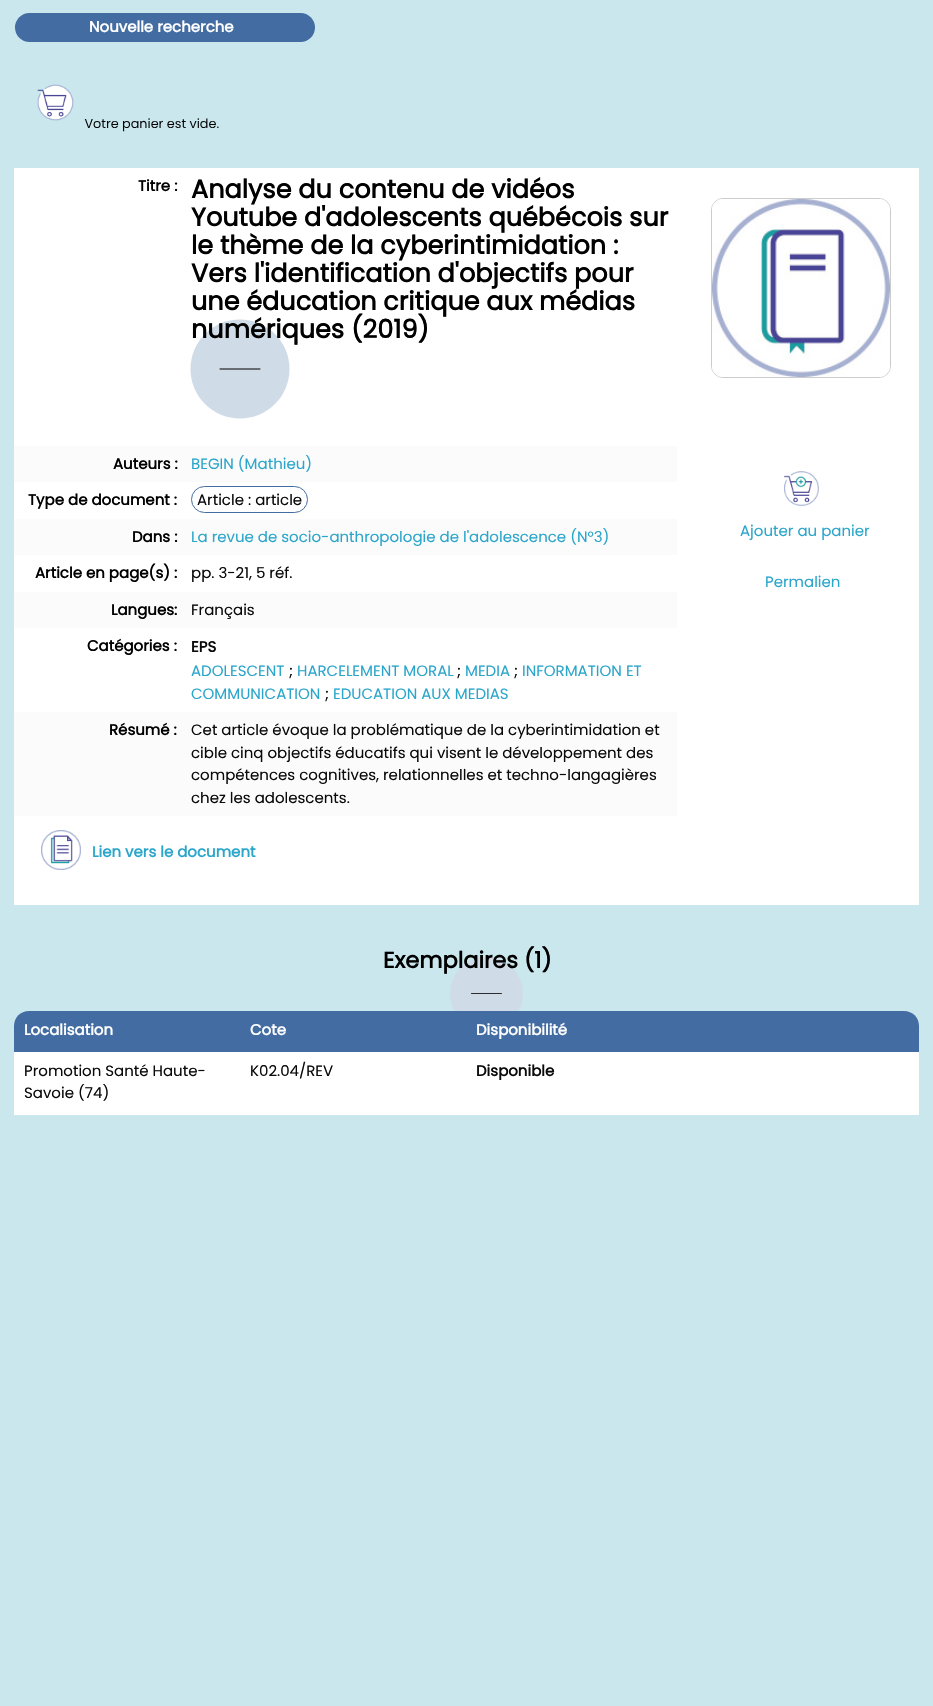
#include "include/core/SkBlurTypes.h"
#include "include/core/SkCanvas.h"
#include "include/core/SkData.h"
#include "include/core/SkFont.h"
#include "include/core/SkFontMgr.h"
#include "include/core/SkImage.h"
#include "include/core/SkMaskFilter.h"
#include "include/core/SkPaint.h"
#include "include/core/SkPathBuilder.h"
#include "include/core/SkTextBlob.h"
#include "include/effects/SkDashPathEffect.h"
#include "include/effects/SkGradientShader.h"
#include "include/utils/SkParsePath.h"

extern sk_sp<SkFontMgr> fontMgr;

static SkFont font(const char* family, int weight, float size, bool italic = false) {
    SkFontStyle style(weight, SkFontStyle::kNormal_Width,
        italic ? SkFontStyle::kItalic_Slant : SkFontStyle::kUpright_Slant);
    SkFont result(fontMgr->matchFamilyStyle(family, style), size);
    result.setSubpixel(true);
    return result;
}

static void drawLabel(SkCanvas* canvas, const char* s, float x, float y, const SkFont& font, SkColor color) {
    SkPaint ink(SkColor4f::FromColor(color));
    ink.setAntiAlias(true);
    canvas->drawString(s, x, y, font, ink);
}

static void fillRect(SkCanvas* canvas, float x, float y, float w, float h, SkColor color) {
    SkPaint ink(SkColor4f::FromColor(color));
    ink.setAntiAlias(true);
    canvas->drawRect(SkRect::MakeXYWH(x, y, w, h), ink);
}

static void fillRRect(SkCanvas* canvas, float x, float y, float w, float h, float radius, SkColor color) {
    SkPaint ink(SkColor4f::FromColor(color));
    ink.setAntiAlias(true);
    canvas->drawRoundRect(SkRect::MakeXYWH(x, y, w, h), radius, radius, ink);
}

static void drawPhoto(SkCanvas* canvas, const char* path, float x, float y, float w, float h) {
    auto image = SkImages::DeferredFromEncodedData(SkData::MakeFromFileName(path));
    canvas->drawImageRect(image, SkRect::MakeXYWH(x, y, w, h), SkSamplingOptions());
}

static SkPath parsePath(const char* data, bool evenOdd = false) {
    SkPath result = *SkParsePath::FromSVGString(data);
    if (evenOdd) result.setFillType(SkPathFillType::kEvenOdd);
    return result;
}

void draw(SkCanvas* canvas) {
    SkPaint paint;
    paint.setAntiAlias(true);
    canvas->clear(0xFFCAE7EE);
    fillRRect(canvas, 15, 13, 300, 29, 14.5f, 0xFF426CA2);
    SkFont font1 = font("Poppins", 700, 15);
    drawLabel(canvas, "Nouvelle recherche", 89, 32, font1, 0xFFFFFFFF);
    drawPhoto(canvas, "assets/img1.png", 37, 84, 182, 48);
    fillRect(canvas, 14, 168, 905, 737, 0xFFFFFFFF);
    drawLabel(canvas, "Titre :", 138, 191, font1, 0xFF000000);
    SkFont font2 = font("Poppins", 700, 25.5f);
    drawLabel(canvas, "Analyse du contenu de vidéos", 191, 198, font2, 0xFF000000);
    drawLabel(canvas, "Youtube d'adolescents québécois sur", 191, 226, font2, 0xFF000000);
    drawLabel(canvas, "le thème de la cyberintimidation :", 191, 254, font2, 0xFF000000);
    drawLabel(canvas, "Vers l'identification d'objectifs pour", 191, 282, font2, 0xFF000000);
    drawLabel(canvas, "une éducation critique aux médias", 191, 310, font2, 0xFF000000);
    paint.setColor(0xFFD0DBE8);
    canvas->drawCircle(240, 369, 49.5f, paint);
    drawLabel(canvas, "numériques (2019)", 191, 338, font2, 0xFF000000);
    paint.setStroke(true);
    paint.setStrokeWidth(1);
    paint.setStrokeCap(SkPaint::kRound_Cap);
    paint.setColor(0xFF000000);
    canvas->drawPath(parsePath("M220 369H260"), paint);
    fillRect(canvas, 14, 446, 663, 36, 0xFFFBFBFB);
    drawLabel(canvas, "Auteurs :", 113, 469, font1, 0xFF000000);
    SkFont font3 = font("Poppins", 400, 15);
    drawLabel(canvas, "BEGIN (Mathieu)", 191, 469, font3, 0xFF2BA6CB);
    drawLabel(canvas, "Type de document :", 28, 505, font1, 0xFF000000);
    paint.setStrokeCap(SkPaint::kButt_Cap);
    paint.setColor(0xFF426CA2);
    canvas->drawRoundRect(SkRect::MakeXYWH(191.5f, 486.5f, 116, 26), 13, 13, paint);
    drawLabel(canvas, "Article : article", 197, 505, font3, 0xFF0A0A0A);
    fillRect(canvas, 14, 519, 663, 36, 0xFFFBFBFB);
    drawLabel(canvas, "Dans :", 132, 542, font1, 0xFF000000);
    drawLabel(canvas, "La revue de socio-anthropologie de l'adolescence (N°3)", 191, 542, font3, 0xFF2BA6CB);
    drawLabel(canvas, "Article en page(s) :", 35, 578, font1, 0xFF000000);
    drawLabel(canvas, "pp. 3-21, 5 réf.", 191, 578, font3, 0xFF0A0A0A);
    fillRect(canvas, 14, 592, 663, 36, 0xFFFBFBFB);
    drawLabel(canvas, "Langues:", 111, 615, font1, 0xFF000000);
    drawLabel(canvas, "Français", 191, 615, font3, 0xFF0A0A0A);
    drawLabel(canvas, "Catégories :", 87, 651, font1, 0xFF000000);
    drawLabel(canvas, "EPS", 191, 652, font1, 0xFF0A0A0A);
    drawLabel(canvas, "ADOLESCENT", 191, 676, font3, 0xFF2BA6CB);
    drawLabel(canvas, ";", 289, 676, font3, 0xFF0A0A0A);
    drawLabel(canvas, "HARCELEMENT MORAL", 297, 676, font3, 0xFF2BA6CB);
    drawLabel(canvas, ";", 457, 676, font3, 0xFF0A0A0A);
    drawLabel(canvas, "MEDIA", 465, 676, font3, 0xFF2BA6CB);
    drawLabel(canvas, ";", 514, 676, font3, 0xFF0A0A0A);
    drawLabel(canvas, "INFORMATION ET", 522, 676, font3, 0xFF2BA6CB);
    drawLabel(canvas, "COMMUNICATION", 191, 699, font3, 0xFF2BA6CB);
    drawLabel(canvas, ";", 325, 699, font3, 0xFF0A0A0A);
    drawLabel(canvas, "EDUCATION AUX MEDIAS", 333, 699, font3, 0xFF2BA6CB);
    fillRect(canvas, 14, 712, 663, 104, 0xFFFBFBFB);
    drawLabel(canvas, "Résumé :", 109, 735, font1, 0xFF000000);
    drawLabel(canvas, "Cet article évoque la problématique de la cyberintimidation et", 191, 735, font3, 0xFF0A0A0A);
    drawLabel(canvas, "cible cinq objectifs éducatifs qui visent le développement des", 191, 758, font3, 0xFF0A0A0A);
    drawLabel(canvas, "compétences cognitives, relationnelles et techno-langagières", 191, 780, font3, 0xFF0A0A0A);
    drawLabel(canvas, "chez les adolescents.", 191, 803, font3, 0xFF0A0A0A);
    drawPhoto(canvas, "assets/img2.png", 41, 830, 40, 40);
    drawLabel(canvas, "Lien vers le document", 92, 857, font1, 0xFF2BA6CB);
    paint.setColor(0xFFCCCCCC);
    canvas->drawRoundRect(SkRect::MakeXYWH(711.5f, 198.5f, 179, 179), 11.5f, 11.5f, paint);
    drawPhoto(canvas, "assets/img3.png", 712, 199, 178, 178);
    drawPhoto(canvas, "assets/img4.png", 784, 471, 35, 35);
    drawLabel(canvas, "Ajouter au panier", 740, 536, font3, 0xFF2BA6CB);
    drawLabel(canvas, "Permalien", 765, 587, font3, 0xFF2BA6CB);
    paint.setStroke(false);
    paint.setColor(0xFFD0DBE8);
    canvas->drawCircle(486.5f, 993.5f, 36.5f, paint);
    SkFont font4 = font("Poppins", 700, 22.5f);
    drawLabel(canvas, "Exemplaires (1)", 383, 968, font4, 0xFF000000);
    paint.setStroke(true);
    paint.setStrokeWidth(0.8f);
    paint.setStrokeCap(SkPaint::kRound_Cap);
    paint.setColor(0xFF000000);
    canvas->drawPath(parsePath("M471.5 993.5H501.5"), paint);
    paint.setStroke(false);
    paint.setColor(0xFF426CA2);
    canvas->drawPath(parsePath("M29 1011H240V1052H14V1026C14 1017.5 20.5 1011 29 1011Z"), paint);
    drawLabel(canvas, "Localisation", 24, 1035, font1, 0xFFFFFFFF);
    fillRect(canvas, 240, 1011, 226, 41, 0xFF426CA2);
    drawLabel(canvas, "Cote", 250, 1035, font1, 0xFFFFFFFF);
    canvas->drawPath(parsePath("M466 1011H904C912.5 1011 919 1017.5 919 1026V1052H466Z"), paint);
    drawLabel(canvas, "Disponibilité", 476, 1035, font1, 0xFFFFFFFF);
    fillRect(canvas, 14, 1052, 905, 63, 0xFFFFFFFF);
    drawLabel(canvas, "Promotion Santé Haute-", 24, 1076, font3, 0xFF0A0A0A);
    drawLabel(canvas, "Savoie (74)", 24, 1098, font3, 0xFF0A0A0A);
    drawLabel(canvas, "K02.04/REV", 250, 1076, font3, 0xFF0A0A0A);
    drawLabel(canvas, "Disponible", 476, 1076, font1, 0xFF0A0A0A);
}
